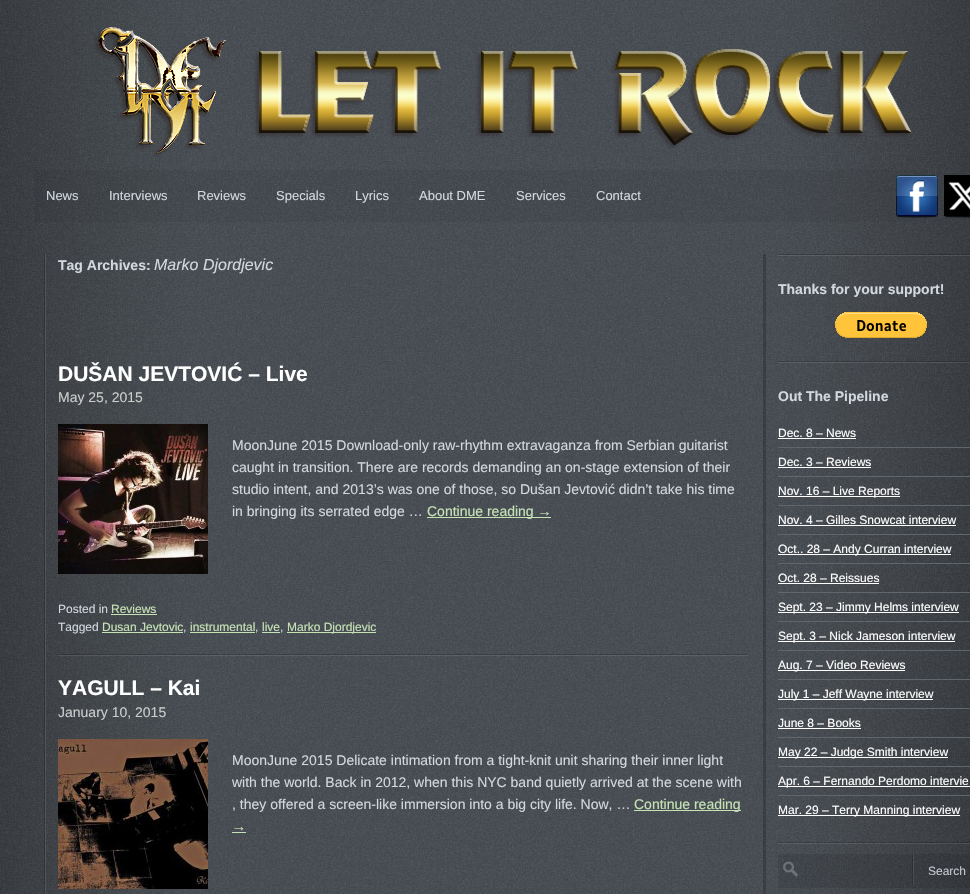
#include "include/core/SkBlurTypes.h"
#include "include/core/SkCanvas.h"
#include "include/core/SkData.h"
#include "include/core/SkFont.h"
#include "include/core/SkFontMgr.h"
#include "include/core/SkImage.h"
#include "include/core/SkMaskFilter.h"
#include "include/core/SkPaint.h"
#include "include/core/SkPathBuilder.h"
#include "include/core/SkTextBlob.h"
#include "include/effects/SkDashPathEffect.h"
#include "include/effects/SkGradientShader.h"
#include "include/utils/SkParsePath.h"

extern sk_sp<SkFontMgr> fontMgr;

static SkFont font(const char* family, int weight, float size, bool italic = false) {
    SkFontStyle style(weight, SkFontStyle::kNormal_Width,
        italic ? SkFontStyle::kItalic_Slant : SkFontStyle::kUpright_Slant);
    SkFont result(fontMgr->matchFamilyStyle(family, style), size);
    result.setSubpixel(true);
    return result;
}

static void drawLabel(SkCanvas* canvas, const char* s, float x, float y, const SkFont& font, SkColor color) {
    SkPaint ink(SkColor4f::FromColor(color));
    ink.setAntiAlias(true);
    canvas->drawString(s, x, y, font, ink);
}

static void fillRect(SkCanvas* canvas, float x, float y, float w, float h, SkColor color) {
    SkPaint ink(SkColor4f::FromColor(color));
    ink.setAntiAlias(true);
    canvas->drawRect(SkRect::MakeXYWH(x, y, w, h), ink);
}

static void drawPhoto(SkCanvas* canvas, const char* path, float x, float y, float w, float h) {
    auto image = SkImages::DeferredFromEncodedData(SkData::MakeFromFileName(path));
    canvas->drawImageRect(image, SkRect::MakeXYWH(x, y, w, h), SkSamplingOptions());
}

void draw(SkCanvas* canvas) {
    SkPaint paint;
    paint.setAntiAlias(true);
    canvas->clear(0xFFFFFFFF);
    drawPhoto(canvas, "assets/img1.png", 0, 0, 970, 894);
    drawPhoto(canvas, "assets/img2.png", 94, 27, 818, 130);
    fillRect(canvas, 34, 170, 893, 52, 0x0D000000);
    SkFont font1 = font("Liberation Sans", 400, 13);
    drawLabel(canvas, "News", 46, 200, font1, 0xFFD2D8DE);
    drawLabel(canvas, "Interviews", 109, 200, font1, 0xFFD2D8DE);
    drawLabel(canvas, "Reviews", 197, 200, font1, 0xFFD2D8DE);
    drawLabel(canvas, "Specials", 276, 200, font1, 0xFFD2D8DE);
    drawLabel(canvas, "Lyrics", 355, 200, font1, 0xFFD2D8DE);
    drawLabel(canvas, "About DME", 419, 200, font1, 0xFFD2D8DE);
    drawLabel(canvas, "Services", 516, 200, font1, 0xFFD2D8DE);
    drawLabel(canvas, "Contact", 596, 200, font1, 0xFFD2D8DE);
    drawPhoto(canvas, "assets/img3.png", 896, 175, 42, 43);
    drawPhoto(canvas, "assets/img4.png", 944, 175, 26, 43);
    drawPhoto(canvas, "assets/img5.png", 44, 254, 2, 640);
    SkFont font2 = font("Liberation Sans", 700, 14);
    drawLabel(canvas, "Tag Archives:", 58, 270, font2, 0xFFD2D8DE);
    SkFont font3 = font("Liberation Sans", 400, 16, true);
    drawLabel(canvas, "Marko Djordjevic", 154, 270, font3, 0xFFD2D8DE);
    SkFont font4 = font("Liberation Sans", 700, 21);
    drawLabel(canvas, "DUŠAN JEVTOVIĆ – Live", 58, 381, font4, 0xFFFFFFFF);
    SkFont font5 = font("Liberation Sans", 400, 14);
    drawLabel(canvas, "May 25, 2015", 58, 402, font5, 0xFFCCCCCC);
    drawPhoto(canvas, "assets/img6.png", 58, 424, 150, 150);
    drawLabel(canvas, "MoonJune 2015 Download-only raw-rhythm extravaganza from Serbian guitarist", 232, 450, font5, 0xFFD2D8DE);
    drawLabel(canvas, "caught in transition. There are records demanding an on-stage extension of their", 232, 472, font5, 0xFFD2D8DE);
    drawLabel(canvas, "studio intent, and 2013’s was one of those, so Dušan Jevtović didn’t take his time", 232, 494, font5, 0xFFD2D8DE);
    drawLabel(canvas, "in bringing its serrated edge …", 232, 516, font5, 0xFFD2D8DE);
    fillRect(canvas, 427, 517, 124, 1, 0xFFC5E2B5);
    drawLabel(canvas, "Continue reading →", 427, 516, font5, 0xFFC5E2B5);
    SkFont font6 = font("Liberation Sans", 400, 12);
    drawLabel(canvas, "Posted in", 58, 613, font6, 0xFFD2D8DE);
    drawLabel(canvas, "Reviews", 111, 613, font6, 0xFFC5E2B5);
    fillRect(canvas, 111, 614, 46, 1, 0xFFC5E2B5);
    drawLabel(canvas, "Tagged", 58, 631, font6, 0xFFD2D8DE);
    drawLabel(canvas, "Dusan Jevtovic", 102, 631, font6, 0xFFC5E2B5);
    fillRect(canvas, 102, 632, 81, 1, 0xFFC5E2B5);
    drawLabel(canvas, ",", 183, 631, font6, 0xFFD2D8DE);
    drawLabel(canvas, "instrumental", 190, 631, font6, 0xFFC5E2B5);
    fillRect(canvas, 190, 632, 65, 1, 0xFFC5E2B5);
    drawLabel(canvas, ",", 255, 631, font6, 0xFFD2D8DE);
    drawLabel(canvas, "live", 262, 631, font6, 0xFFC5E2B5);
    fillRect(canvas, 262, 632, 18, 1, 0xFFC5E2B5);
    drawLabel(canvas, ",", 280, 631, font6, 0xFFD2D8DE);
    fillRect(canvas, 287, 632, 89, 1, 0xFFC5E2B5);
    drawLabel(canvas, "Marko Djordjevic", 287, 631, font6, 0xFFC5E2B5);
    drawPhoto(canvas, "assets/img7.png", 58, 654, 690, 2);
    drawLabel(canvas, "YAGULL – Kai", 58, 695, font4, 0xFFFFFFFF);
    drawLabel(canvas, "January 10, 2015", 58, 717, font5, 0xFFCCCCCC);
    drawPhoto(canvas, "assets/img8.png", 58, 739, 150, 150);
    drawLabel(canvas, "MoonJune 2015 Delicate intimation from a tight-knit unit sharing their inner light", 232, 765, font5, 0xFFD2D8DE);
    drawLabel(canvas, "with the world. Back in 2012, when this NYC band quietly arrived at the scene with", 232, 787, font5, 0xFFD2D8DE);
    drawLabel(canvas, ", they offered a screen-like immersion into a big city life. Now, …", 232, 809, font5, 0xFFD2D8DE);
    fillRect(canvas, 634, 810, 107, 1, 0xFFC5E2B5);
    drawLabel(canvas, "Continue reading", 634, 809, font5, 0xFFC5E2B5);
    drawLabel(canvas, "→", 232, 831, font5, 0xFFC5E2B5);
    fillRect(canvas, 232, 832, 14, 1, 0xFFC5E2B5);
    fillRect(canvas, 763, 254, 3, 640, 0x33000000);
    drawPhoto(canvas, "assets/img9.png", 778, 254, 192, 2);
    drawLabel(canvas, "Thanks for your support!", 778, 294, font2, 0xFFD2D8DE);
    drawPhoto(canvas, "assets/img10.png", 835, 312, 92, 26);
    drawPhoto(canvas, "assets/img11.png", 778, 361, 192, 2);
    drawLabel(canvas, "Out The Pipeline", 778, 401, font2, 0xFFD2D8DE);
    drawLabel(canvas, "Dec. 8 – News", 778, 437, font6, 0xFFFFFFFF);
    fillRect(canvas, 778, 438, 78, 1, 0xFFFFFFFF);
    fillRect(canvas, 778, 447, 192, 1, 0xFF5F676D);
    drawLabel(canvas, "Dec. 3 – Reviews", 778, 466, font6, 0xFFFFFFFF);
    fillRect(canvas, 778, 467, 93, 1, 0xFFFFFFFF);
    fillRect(canvas, 778, 476, 192, 1, 0xFF5F676D);
    fillRect(canvas, 778, 496, 122, 1, 0xFFFFFFFF);
    drawLabel(canvas, "Nov. 16 – Live Reports", 778, 495, font6, 0xFFFFFFFF);
    fillRect(canvas, 778, 505, 192, 1, 0xFF5F676D);
    drawLabel(canvas, "Nov. 4 – Gilles Snowcat interview", 778, 524, font6, 0xFFFFFFFF);
    fillRect(canvas, 778, 525, 178, 1, 0xFFFFFFFF);
    fillRect(canvas, 778, 534, 192, 1, 0xFF5F676D);
    fillRect(canvas, 778, 554, 173, 1, 0xFFFFFFFF);
    drawLabel(canvas, "Oct.. 28 – Andy Curran interview", 778, 553, font6, 0xFFFFFFFF);
    fillRect(canvas, 778, 563, 192, 1, 0xFF5F676D);
    drawLabel(canvas, "Oct. 28 – Reissues", 778, 582, font6, 0xFFFFFFFF);
    fillRect(canvas, 778, 583, 101, 1, 0xFFFFFFFF);
    fillRect(canvas, 778, 592, 192, 1, 0xFF5F676D);
    fillRect(canvas, 778, 612, 181, 1, 0xFFFFFFFF);
    drawLabel(canvas, "Sept. 23 – Jimmy Helms interview", 778, 611, font6, 0xFFFFFFFF);
    fillRect(canvas, 778, 621, 192, 1, 0xFF5F676D);
    fillRect(canvas, 778, 641, 177, 1, 0xFFFFFFFF);
    drawLabel(canvas, "Sept. 3 – Nick Jameson interview", 778, 640, font6, 0xFFFFFFFF);
    fillRect(canvas, 778, 650, 192, 1, 0xFF5F676D);
    fillRect(canvas, 778, 670, 127, 1, 0xFFFFFFFF);
    drawLabel(canvas, "Aug. 7 – Video Reviews", 778, 669, font6, 0xFFFFFFFF);
    fillRect(canvas, 778, 679, 192, 1, 0xFF5F676D);
    fillRect(canvas, 778, 699, 155, 1, 0xFFFFFFFF);
    drawLabel(canvas, "July 1 – Jeff Wayne interview", 778, 698, font6, 0xFFFFFFFF);
    fillRect(canvas, 778, 708, 192, 1, 0xFF5F676D);
    drawLabel(canvas, "June 8 – Books", 778, 727, font6, 0xFFFFFFFF);
    fillRect(canvas, 778, 728, 83, 1, 0xFFFFFFFF);
    fillRect(canvas, 778, 737, 192, 1, 0xFF5F676D);
    fillRect(canvas, 778, 757, 170, 1, 0xFFFFFFFF);
    drawLabel(canvas, "May 22 – Judge Smith interview", 778, 756, font6, 0xFFFFFFFF);
    fillRect(canvas, 778, 766, 192, 1, 0xFF5F676D);
    fillRect(canvas, 778, 786, 192, 1, 0xFFFFFFFF);
    drawLabel(canvas, "Apr. 6 – Fernando Perdomo intervie", 778, 785, font6, 0xFFFFFFFF);
    fillRect(canvas, 778, 795, 192, 1, 0xFF5F676D);
    fillRect(canvas, 778, 815, 182, 1, 0xFFFFFFFF);
    drawLabel(canvas, "Mar. 29 – Terry Manning interview", 778, 814, font6, 0xFFFFFFFF);
    drawPhoto(canvas, "assets/img12.png", 778, 842, 192, 2);
    fillRect(canvas, 778, 854, 192, 34, 0x1A000000);
    drawPhoto(canvas, "assets/img13.png", 783, 861, 16, 16);
    drawPhoto(canvas, "assets/img14.png", 912, 854, 2, 31);
    drawLabel(canvas, "Search", 928, 875, font6, 0xFFC5CBD0);
}
